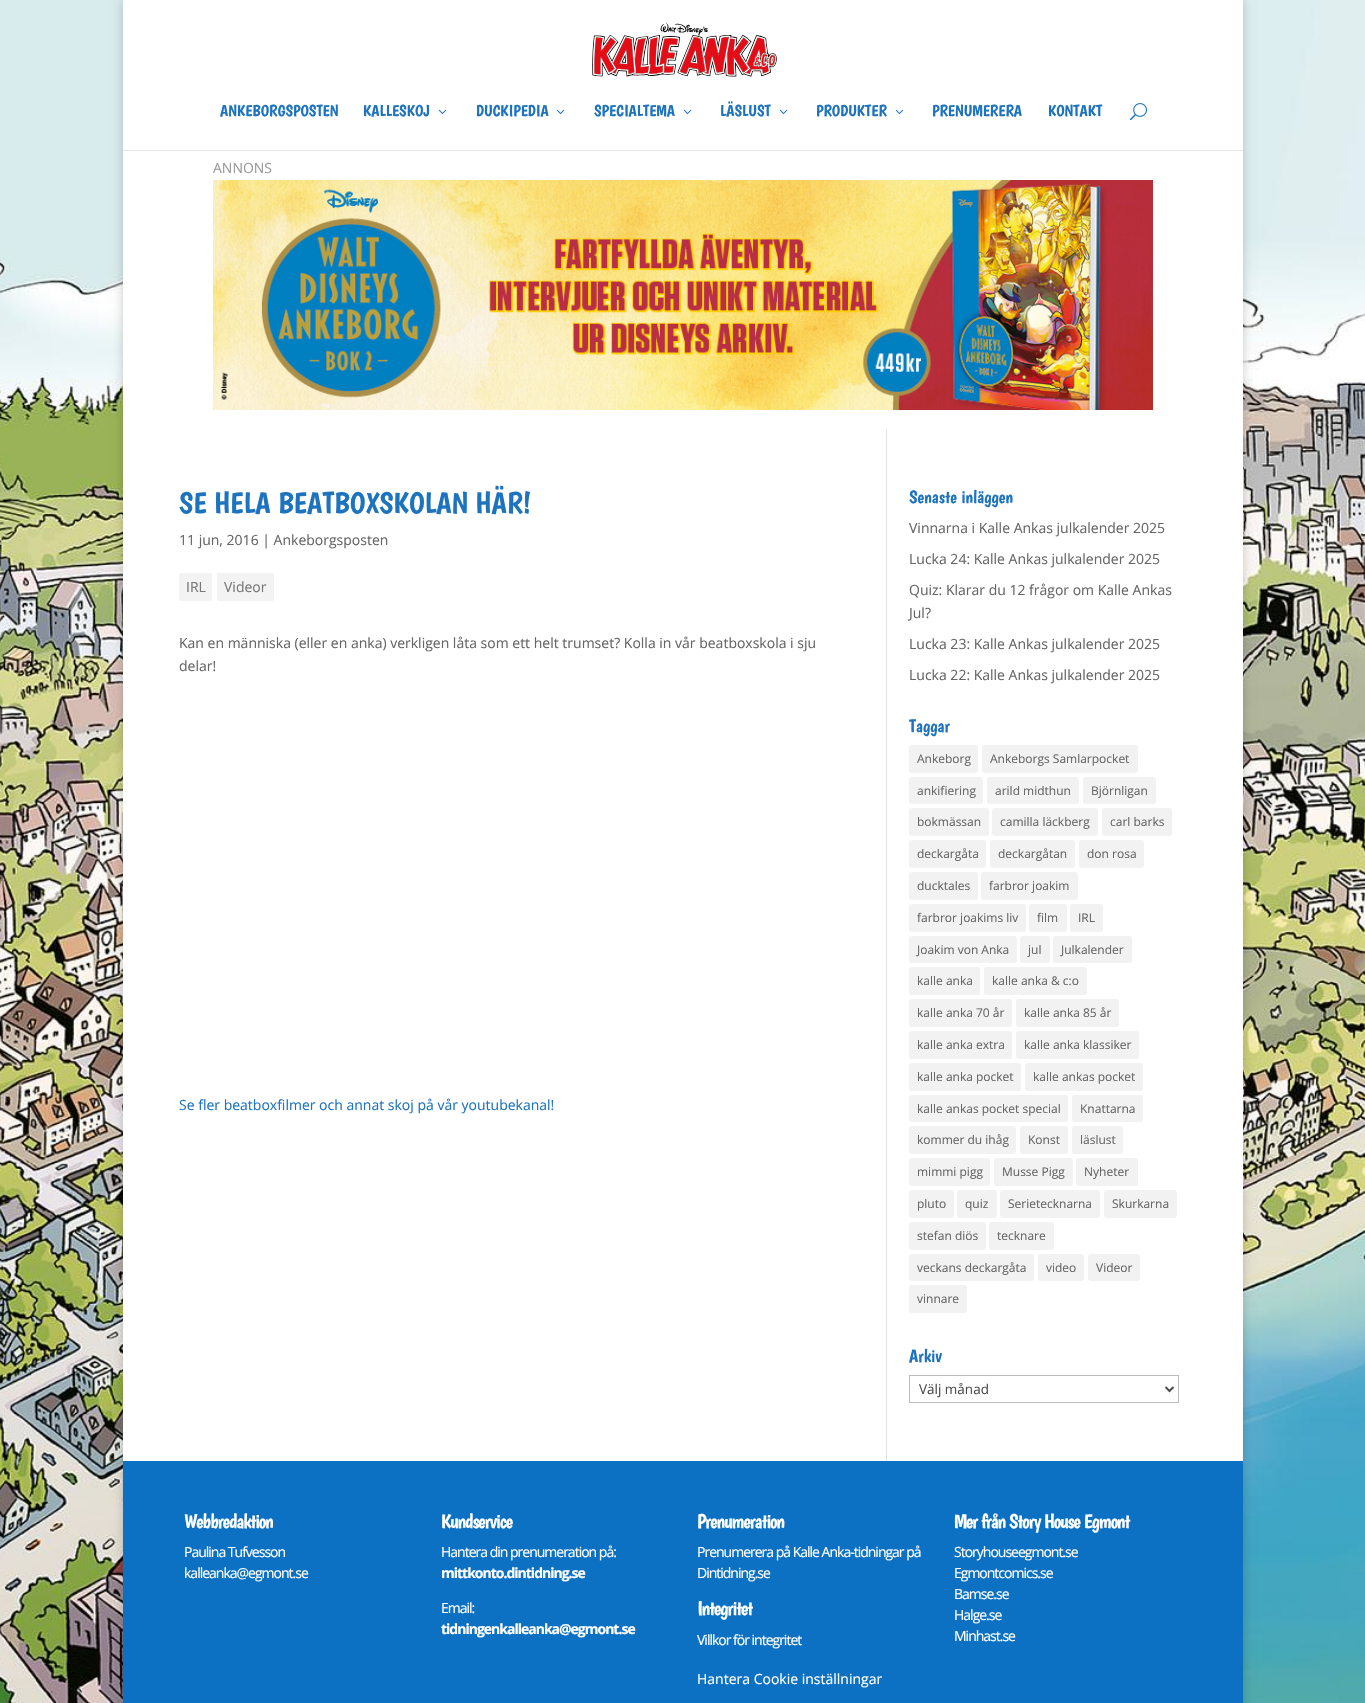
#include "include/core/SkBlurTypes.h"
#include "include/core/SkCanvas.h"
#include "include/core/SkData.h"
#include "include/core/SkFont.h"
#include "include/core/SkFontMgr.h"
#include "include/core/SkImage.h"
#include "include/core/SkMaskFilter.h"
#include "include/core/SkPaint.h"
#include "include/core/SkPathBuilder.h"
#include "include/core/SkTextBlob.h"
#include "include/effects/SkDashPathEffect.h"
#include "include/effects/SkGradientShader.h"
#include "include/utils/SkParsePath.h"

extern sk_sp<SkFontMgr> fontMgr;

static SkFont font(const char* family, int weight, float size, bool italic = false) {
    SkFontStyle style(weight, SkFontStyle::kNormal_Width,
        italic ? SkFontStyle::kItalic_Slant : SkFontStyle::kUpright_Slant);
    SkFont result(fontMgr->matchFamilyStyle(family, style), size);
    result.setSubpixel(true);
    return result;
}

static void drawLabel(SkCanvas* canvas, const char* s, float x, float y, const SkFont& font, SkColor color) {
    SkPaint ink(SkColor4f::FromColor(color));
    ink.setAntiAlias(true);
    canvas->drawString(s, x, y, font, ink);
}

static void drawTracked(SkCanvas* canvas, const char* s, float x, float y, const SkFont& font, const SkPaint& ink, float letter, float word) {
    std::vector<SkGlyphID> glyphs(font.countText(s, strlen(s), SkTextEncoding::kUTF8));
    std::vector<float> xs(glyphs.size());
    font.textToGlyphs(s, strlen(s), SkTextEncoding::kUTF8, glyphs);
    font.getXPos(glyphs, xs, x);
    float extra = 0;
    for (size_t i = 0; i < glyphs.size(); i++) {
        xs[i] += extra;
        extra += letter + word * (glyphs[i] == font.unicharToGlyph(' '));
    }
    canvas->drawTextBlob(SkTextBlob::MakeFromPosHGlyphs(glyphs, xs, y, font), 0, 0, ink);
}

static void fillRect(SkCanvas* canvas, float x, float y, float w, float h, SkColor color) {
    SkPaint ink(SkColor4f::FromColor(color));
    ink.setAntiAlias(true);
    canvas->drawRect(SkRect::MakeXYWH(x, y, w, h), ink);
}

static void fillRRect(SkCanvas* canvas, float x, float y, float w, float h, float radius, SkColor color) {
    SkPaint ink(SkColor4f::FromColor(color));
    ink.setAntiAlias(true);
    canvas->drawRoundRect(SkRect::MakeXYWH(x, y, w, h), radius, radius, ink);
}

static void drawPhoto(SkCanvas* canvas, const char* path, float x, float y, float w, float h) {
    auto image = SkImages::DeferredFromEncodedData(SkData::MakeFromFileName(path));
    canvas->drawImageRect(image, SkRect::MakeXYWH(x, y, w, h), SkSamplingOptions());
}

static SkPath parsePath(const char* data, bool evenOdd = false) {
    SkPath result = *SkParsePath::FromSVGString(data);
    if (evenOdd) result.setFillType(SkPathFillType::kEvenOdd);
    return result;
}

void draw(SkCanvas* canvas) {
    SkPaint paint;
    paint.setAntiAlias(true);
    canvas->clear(0xFFFFFFFF);
    drawPhoto(canvas, "assets/img1.png", 0, 0, 1365, 1703);
    paint.setColor(0x33000000);
    paint.setMaskFilter(SkMaskFilter::MakeBlur(kNormal_SkBlurStyle, 5));
    canvas->drawRect(SkRect::MakeXYWH(123, 0, 1120, 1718), paint);
    paint.setMaskFilter(nullptr);
    fillRect(canvas, 123, 150, 1120, 1, 0xFFE6E6E6);
    fillRect(canvas, 123, 0, 1120, 150, 0xFFFFFFFF);
    drawPhoto(canvas, "assets/img2.png", 592, 23, 185, 54);
    SkFont font1 = font("Boogaloo", 400, 16);
    drawLabel(canvas, "ANKEBORGSPOSTEN", 220, 116, font1, 0xFF1E73BF);
    drawLabel(canvas, "KALLESKOJ", 363, 116, font1, 0xFF1E73BF);
    drawPhoto(canvas, "assets/img3.png", 438, 109, 9, 5);
    drawLabel(canvas, "DUCKIPEDIA", 476, 116, font1, 0xFF1E73BF);
    drawPhoto(canvas, "assets/img3.png", 556, 109, 9, 5);
    drawLabel(canvas, "SPECIALTEMA", 594, 116, font1, 0xFF1E73BF);
    drawPhoto(canvas, "assets/img3.png", 683, 109, 9, 5);
    drawLabel(canvas, "LÄSLUST", 720, 116, font1, 0xFF1E73BF);
    drawPhoto(canvas, "assets/img3.png", 779, 109, 9, 5);
    drawLabel(canvas, "PRODUKTER", 816, 116, font1, 0xFF1E73BF);
    drawPhoto(canvas, "assets/img3.png", 895, 109, 9, 5);
    drawLabel(canvas, "PRENUMERERA", 932, 116, font1, 0xFF1E73BF);
    drawLabel(canvas, "KONTAKT", 1048, 116, font1, 0xFF1E73BF);
    drawPhoto(canvas, "assets/img4.png", 1130, 103, 17, 18);
    fillRect(canvas, 123, 151, 1120, 1310, 0xFFFFFFFF);
    SkFont font2 = font("Open Sans", 400, 14);
    drawLabel(canvas, "ANNONS", 213, 173, font2, 0xFF999999);
    drawPhoto(canvas, "assets/img5.png", 213, 180, 940, 230);
    fillRect(canvas, 886, 430, 1, 1031, 0xFFE2E2E2);
    SkFont font3 = font("Boogaloo", 400, 30);
    drawLabel(canvas, "SE HELA BEATBOXSKOLAN HÄR!", 179, 513, font3, 0xFF1E73BF);
    drawLabel(canvas, "11 jun, 2016 | Ankeborgsposten", 179, 545, font2, 0xFF666666);
    fillRRect(canvas, 179, 573, 33, 28, 2, 0xFFF3F3F3);
    drawLabel(canvas, "IRL", 186, 592, font2, 0xFF787878);
    fillRRect(canvas, 217, 573, 57, 28, 2, 0xFFF3F3F3);
    drawLabel(canvas, "Videor", 224, 592, font2, 0xFF787878);
    drawLabel(canvas, "Kan en människa (eller en anka) verkligen låta som ett helt trumset? Kolla in vår beatboxskola i sju", 179, 648, font2, 0xFF666666);
    drawLabel(canvas, "delar!", 179, 671, font2, 0xFF666666);
    drawLabel(canvas, "Se fler beatboxfilmer och annat skoj på vår youtubekanal!", 179, 1110, font2, 0xFF1E73BF);
    SkFont font4 = font("Boogaloo", 400, 18);
    drawLabel(canvas, "Senaste inläggen", 909, 503, font4, 0xFF1E73BF);
    drawLabel(canvas, "Vinnarna i Kalle Ankas julkalender 2025", 909, 533, font2, 0xFF666666);
    drawLabel(canvas, "Lucka 24: Kalle Ankas julkalender 2025", 909, 564, font2, 0xFF666666);
    drawLabel(canvas, "Quiz: Klarar du 12 frågor om Kalle Ankas", 909, 595, font2, 0xFF666666);
    drawLabel(canvas, "Jul?", 909, 618, font2, 0xFF666666);
    drawLabel(canvas, "Lucka 23: Kalle Ankas julkalender 2025", 909, 649, font2, 0xFF666666);
    drawLabel(canvas, "Lucka 22: Kalle Ankas julkalender 2025", 909, 680, font2, 0xFF666666);
    drawLabel(canvas, "Taggar", 909, 732, font4, 0xFF1E73BF);
    fillRRect(canvas, 909, 745, 69, 28, 3, 0xFFF2F2F2);
    SkFont font5 = font("Open Sans", 400, 12);
    drawLabel(canvas, "Ankeborg", 917, 763, font5, 0xFF666666);
    fillRRect(canvas, 982, 745, 156, 28, 3, 0xFFF2F2F2);
    drawLabel(canvas, "Ankeborgs Samlarpocket", 990, 763, font5, 0xFF666666);
    fillRRect(canvas, 909, 777, 74, 27, 3, 0xFFF2F2F2);
    drawLabel(canvas, "ankifiering", 917, 795, font5, 0xFF666666);
    fillRRect(canvas, 987, 777, 92, 27, 3, 0xFFF2F2F2);
    drawLabel(canvas, "arild midthun", 995, 795, font5, 0xFF666666);
    fillRRect(canvas, 1083, 777, 73, 27, 3, 0xFFF2F2F2);
    drawLabel(canvas, "Björnligan", 1091, 795, font5, 0xFF666666);
    fillRRect(canvas, 909, 808, 80, 28, 3, 0xFFF2F2F2);
    drawLabel(canvas, "bokmässan", 917, 826, font5, 0xFF666666);
    fillRRect(canvas, 992, 808, 106, 28, 3, 0xFFF2F2F2);
    drawLabel(canvas, "camilla läckberg", 1000, 826, font5, 0xFF666666);
    fillRRect(canvas, 1102, 808, 70, 28, 3, 0xFFF2F2F2);
    drawLabel(canvas, "carl barks", 1110, 826, font5, 0xFF666666);
    fillRRect(canvas, 909, 840, 77, 28, 3, 0xFFF2F2F2);
    drawLabel(canvas, "deckargåta", 917, 858, font5, 0xFF666666);
    fillRRect(canvas, 990, 840, 85, 28, 3, 0xFFF2F2F2);
    drawLabel(canvas, "deckargåtan", 998, 858, font5, 0xFF666666);
    fillRRect(canvas, 1079, 840, 65, 28, 3, 0xFFF2F2F2);
    drawLabel(canvas, "don rosa", 1087, 858, font5, 0xFF666666);
    fillRRect(canvas, 909, 872, 69, 28, 3, 0xFFF2F2F2);
    drawLabel(canvas, "ducktales", 917, 890, font5, 0xFF666666);
    fillRRect(canvas, 981, 872, 97, 28, 3, 0xFFF2F2F2);
    drawLabel(canvas, "farbror joakim", 989, 890, font5, 0xFF666666);
    fillRRect(canvas, 909, 904, 117, 28, 3, 0xFFF2F2F2);
    drawLabel(canvas, "farbror joakims liv", 917, 922, font5, 0xFF666666);
    fillRRect(canvas, 1029, 904, 38, 28, 3, 0xFFF2F2F2);
    drawLabel(canvas, "film", 1037, 922, font5, 0xFF666666);
    fillRRect(canvas, 1070, 904, 33, 28, 3, 0xFFF2F2F2);
    drawLabel(canvas, "IRL", 1078, 922, font5, 0xFF666666);
    fillRRect(canvas, 909, 936, 108, 27, 3, 0xFFF2F2F2);
    drawLabel(canvas, "Joakim von Anka", 917, 954, font5, 0xFF666666);
    fillRRect(canvas, 1020, 936, 30, 27, 3, 0xFFF2F2F2);
    drawLabel(canvas, "jul", 1028, 954, font5, 0xFF666666);
    fillRRect(canvas, 1053, 936, 79, 27, 3, 0xFFF2F2F2);
    drawLabel(canvas, "Julkalender", 1061, 954, font5, 0xFF666666);
    fillRRect(canvas, 909, 967, 71, 28, 3, 0xFFF2F2F2);
    drawLabel(canvas, "kalle anka", 917, 985, font5, 0xFF666666);
    fillRRect(canvas, 984, 967, 103, 28, 3, 0xFFF2F2F2);
    drawLabel(canvas, "kalle anka & c:o", 992, 985, font5, 0xFF666666);
    fillRRect(canvas, 909, 999, 103, 28, 3, 0xFFF2F2F2);
    drawLabel(canvas, "kalle anka 70 år", 917, 1017, font5, 0xFF666666);
    fillRRect(canvas, 1016, 999, 103, 28, 3, 0xFFF2F2F2);
    drawLabel(canvas, "kalle anka 85 år", 1024, 1017, font5, 0xFF666666);
    fillRRect(canvas, 909, 1031, 103, 28, 3, 0xFFF2F2F2);
    drawLabel(canvas, "kalle anka extra", 917, 1049, font5, 0xFF666666);
    fillRRect(canvas, 1016, 1031, 123, 28, 3, 0xFFF2F2F2);
    drawLabel(canvas, "kalle anka klassiker", 1024, 1049, font5, 0xFF666666);
    fillRRect(canvas, 909, 1063, 112, 28, 3, 0xFFF2F2F2);
    drawLabel(canvas, "kalle anka pocket", 917, 1081, font5, 0xFF666666);
    fillRRect(canvas, 1025, 1063, 118, 28, 3, 0xFFF2F2F2);
    drawLabel(canvas, "kalle ankas pocket", 1033, 1081, font5, 0xFF666666);
    fillRRect(canvas, 909, 1095, 159, 27, 3, 0xFFF2F2F2);
    drawLabel(canvas, "kalle ankas pocket special", 917, 1113, font5, 0xFF666666);
    fillRRect(canvas, 1072, 1095, 71, 27, 3, 0xFFF2F2F2);
    drawLabel(canvas, "Knattarna", 1080, 1113, font5, 0xFF666666);
    fillRRect(canvas, 909, 1126, 107, 28, 3, 0xFFF2F2F2);
    drawLabel(canvas, "kommer du ihåg", 917, 1144, font5, 0xFF666666);
    fillRRect(canvas, 1020, 1126, 48, 28, 3, 0xFFF2F2F2);
    drawLabel(canvas, "Konst", 1028, 1144, font5, 0xFF666666);
    fillRRect(canvas, 1072, 1126, 51, 28, 3, 0xFFF2F2F2);
    drawLabel(canvas, "läslust", 1080, 1144, font5, 0xFF666666);
    fillRRect(canvas, 909, 1158, 81, 28, 3, 0xFFF2F2F2);
    drawLabel(canvas, "mimmi pigg", 917, 1176, font5, 0xFF666666);
    fillRRect(canvas, 994, 1158, 79, 28, 3, 0xFFF2F2F2);
    drawLabel(canvas, "Musse Pigg", 1002, 1176, font5, 0xFF666666);
    fillRRect(canvas, 1076, 1158, 62, 28, 3, 0xFFF2F2F2);
    drawLabel(canvas, "Nyheter", 1084, 1176, font5, 0xFF666666);
    fillRRect(canvas, 909, 1190, 45, 28, 3, 0xFFF2F2F2);
    drawLabel(canvas, "pluto", 917, 1208, font5, 0xFF666666);
    fillRRect(canvas, 957, 1190, 40, 28, 3, 0xFFF2F2F2);
    drawLabel(canvas, "quiz", 965, 1208, font5, 0xFF666666);
    fillRRect(canvas, 1000, 1190, 100, 28, 3, 0xFFF2F2F2);
    drawLabel(canvas, "Serietecknarna", 1008, 1208, font5, 0xFF666666);
    fillRRect(canvas, 1104, 1190, 73, 28, 3, 0xFFF2F2F2);
    drawLabel(canvas, "Skurkarna", 1112, 1208, font5, 0xFF666666);
    fillRRect(canvas, 909, 1222, 77, 28, 3, 0xFFF2F2F2);
    drawLabel(canvas, "stefan diös", 917, 1240, font5, 0xFF666666);
    fillRRect(canvas, 989, 1222, 65, 28, 3, 0xFFF2F2F2);
    drawLabel(canvas, "tecknare", 997, 1240, font5, 0xFF666666);
    fillRRect(canvas, 909, 1254, 125, 27, 3, 0xFFF2F2F2);
    drawLabel(canvas, "veckans deckargåta", 917, 1272, font5, 0xFF666666);
    fillRRect(canvas, 1038, 1254, 46, 27, 3, 0xFFF2F2F2);
    drawLabel(canvas, "video", 1046, 1272, font5, 0xFF666666);
    fillRRect(canvas, 1088, 1254, 52, 27, 3, 0xFFF2F2F2);
    drawLabel(canvas, "Videor", 1096, 1272, font5, 0xFF666666);
    fillRRect(canvas, 909, 1285, 58, 28, 3, 0xFFF2F2F2);
    drawLabel(canvas, "vinnare", 917, 1303, font5, 0xFF666666);
    drawLabel(canvas, "Arkiv", 909, 1362, font4, 0xFF1E73BF);
    paint.setStroke(true);
    paint.setStrokeWidth(1);
    paint.setColor(0xFFBBBBBB);
    canvas->drawRect(SkRect::MakeXYWH(909.5f, 1375.5f, 269, 27), paint);
    paint.setStrokeWidth(2);
    paint.setColor(0xFF4E4E4E);
    canvas->drawPath(parsePath("M1165.5 1387L1169.5 1391L1173.5 1387"), paint);
    SkFont font6 = font("Open Sans", 400, 13.5f);
    drawLabel(canvas, "Välj månad", 919, 1394, font6, 0xFF4E4E4E);
    fillRect(canvas, 123, 1461, 1120, 242, 0xFF0C71C3);
    SkFont font7 = font("Boogaloo", 400, 20);
    paint.setStroke(false);
    paint.setColor(0xFFFFFFFF);
    drawTracked(canvas, "Webbredaktion", 184, 1528, font7, paint, -1, 0);
    drawTracked(canvas, "Paulina Tufvesson", 184, 1557, font2, paint, -1, 0);
    drawTracked(canvas, "kalleanka@egmont.se", 184, 1578, font2, paint, -1, 0);
    drawTracked(canvas, "Kundservice", 441, 1528, font7, paint, -1, 0);
    drawTracked(canvas, "Hantera din prenumeration på:", 441, 1557, font2, paint, -1, 0);
    SkFont font8 = font("Open Sans", 700, 14);
    drawTracked(canvas, "mittkonto.dintidning.se", 441, 1578, font8, paint, -1, 0);
    drawTracked(canvas, "Email:", 441, 1613, font2, paint, -1, 0);
    drawTracked(canvas, "tidningenkalleanka@egmont.se", 441, 1634, font8, paint, -1, 0);
    drawTracked(canvas, "Prenumeration", 697, 1528, font7, paint, -1, 0);
    drawTracked(canvas, "Prenumerera på Kalle Anka-tidningar på", 697, 1557, font2, paint, -1, 0);
    drawTracked(canvas, "Dintidning.se", 697, 1578, font2, paint, -1, 0);
    drawTracked(canvas, "Integritet", 697, 1615, font7, paint, -1, 0);
    drawTracked(canvas, "Villkor för integritet", 697, 1645, font2, paint, -1, 0);
    drawLabel(canvas, "Hantera Cookie inställningar", 697, 1684, font2, 0xFFFFFFFF);
    drawTracked(canvas, "Mer från Story House Egmont", 954, 1528, font7, paint, -1, 0);
    drawTracked(canvas, "Storyhouseegmont.se", 954, 1557, font2, paint, -1, 0);
    drawTracked(canvas, "Egmontcomics.se", 954, 1578, font2, paint, -1, 0);
    drawTracked(canvas, "Bamse.se", 954, 1599, font2, paint, -1, 0);
    drawTracked(canvas, "Halge.se", 954, 1620, font2, paint, -1, 0);
    drawTracked(canvas, "Minhast.se", 954, 1641, font2, paint, -1, 0);
}
